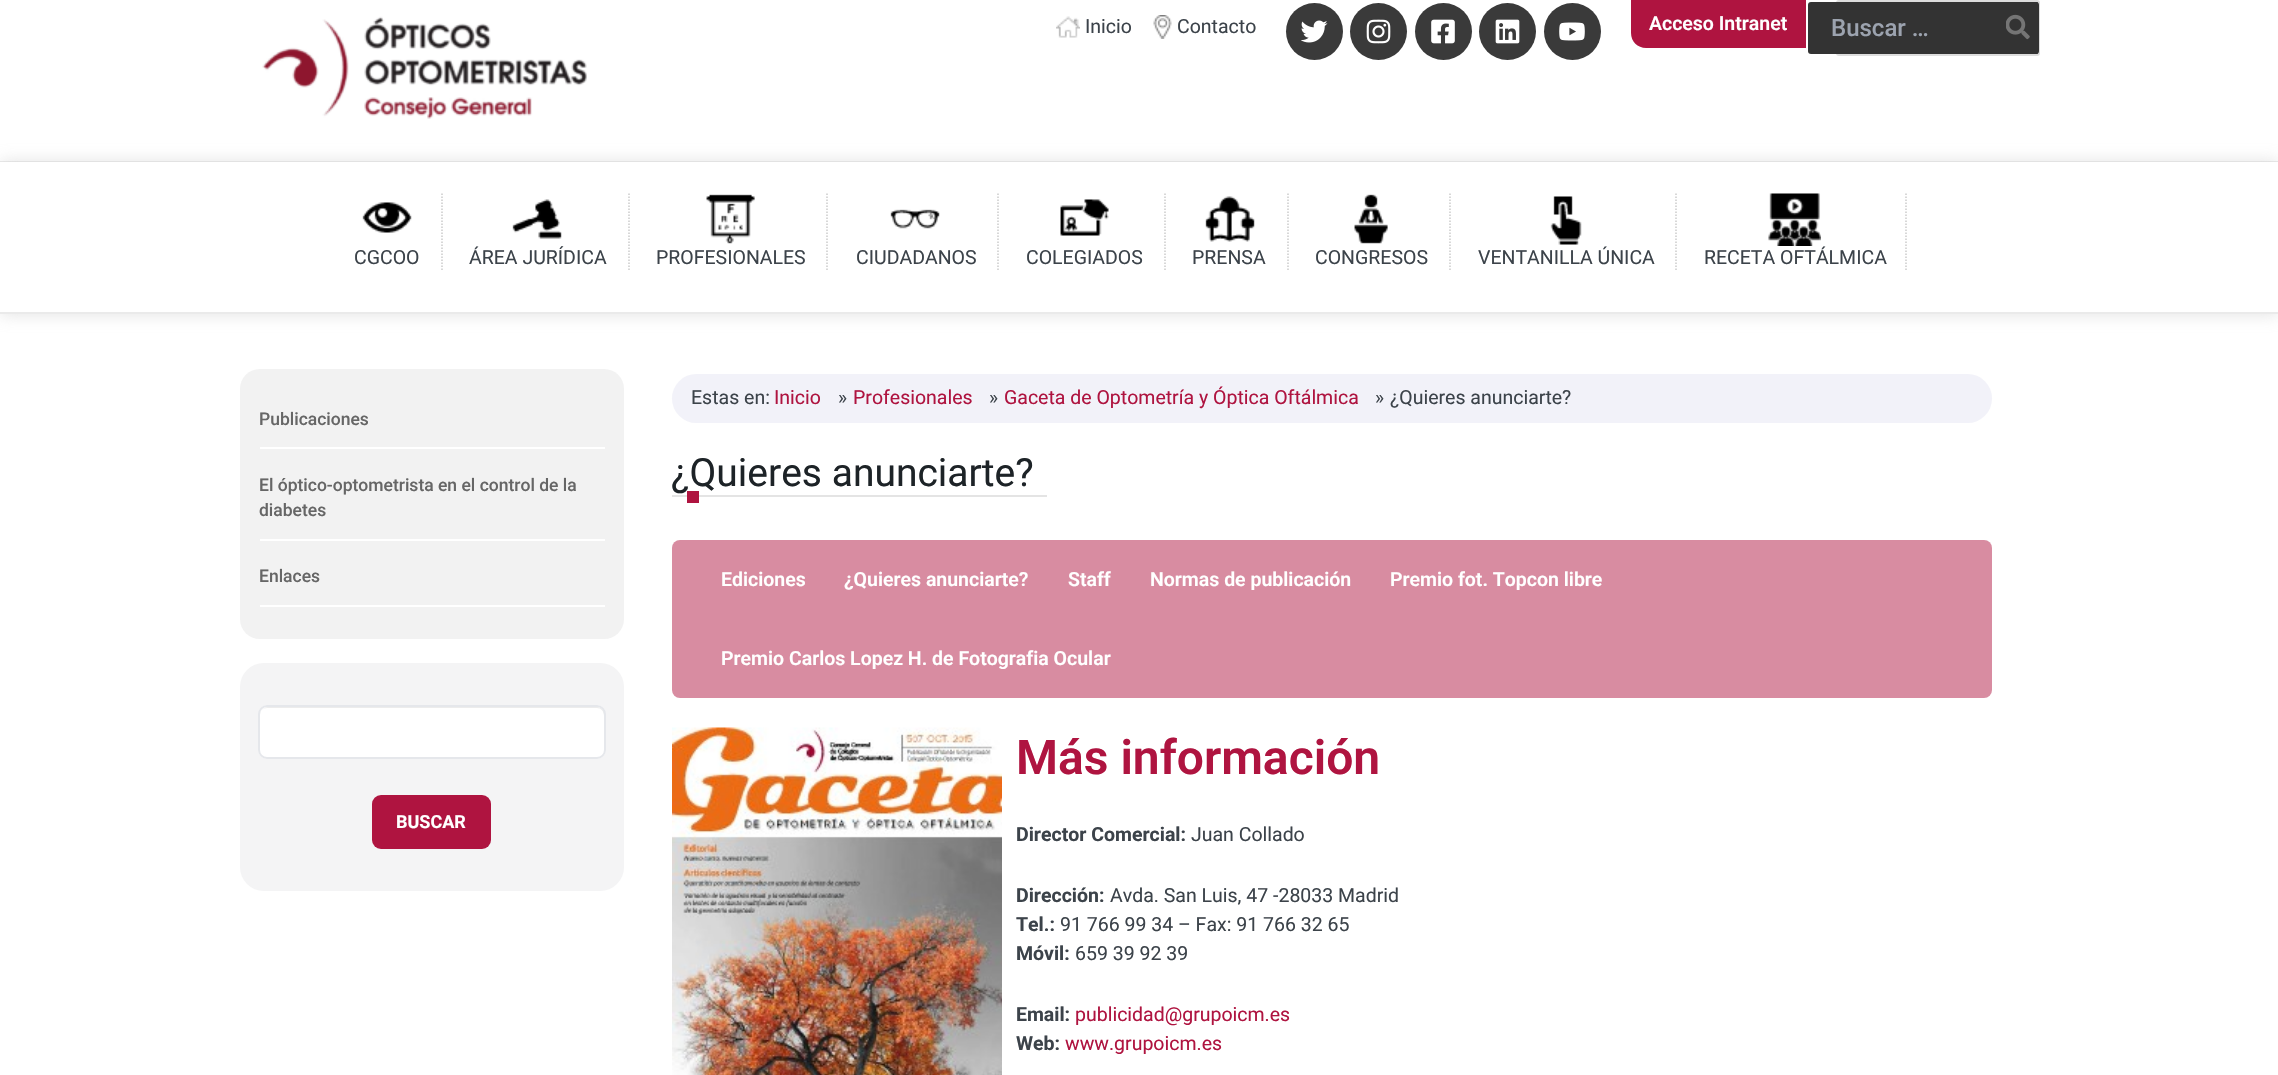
#include "include/core/SkBlurTypes.h"
#include "include/core/SkCanvas.h"
#include "include/core/SkData.h"
#include "include/core/SkFont.h"
#include "include/core/SkFontMgr.h"
#include "include/core/SkImage.h"
#include "include/core/SkMaskFilter.h"
#include "include/core/SkPaint.h"
#include "include/core/SkPathBuilder.h"
#include "include/core/SkTextBlob.h"
#include "include/effects/SkDashPathEffect.h"
#include "include/effects/SkGradientShader.h"
#include "include/utils/SkParsePath.h"

extern sk_sp<SkFontMgr> fontMgr;

static SkFont font(const char* family, int weight, float size, bool italic = false) {
    SkFontStyle style(weight, SkFontStyle::kNormal_Width,
        italic ? SkFontStyle::kItalic_Slant : SkFontStyle::kUpright_Slant);
    SkFont result(fontMgr->matchFamilyStyle(family, style), size);
    result.setSubpixel(true);
    return result;
}

static void drawLabel(SkCanvas* canvas, const char* s, float x, float y, const SkFont& font, SkColor color) {
    SkPaint ink(SkColor4f::FromColor(color));
    ink.setAntiAlias(true);
    canvas->drawString(s, x, y, font, ink);
}

static void fillRect(SkCanvas* canvas, float x, float y, float w, float h, SkColor color) {
    SkPaint ink(SkColor4f::FromColor(color));
    ink.setAntiAlias(true);
    canvas->drawRect(SkRect::MakeXYWH(x, y, w, h), ink);
}

static void fillRRect(SkCanvas* canvas, float x, float y, float w, float h, float radius, SkColor color) {
    SkPaint ink(SkColor4f::FromColor(color));
    ink.setAntiAlias(true);
    canvas->drawRoundRect(SkRect::MakeXYWH(x, y, w, h), radius, radius, ink);
}

static void drawPhoto(SkCanvas* canvas, const char* path, float x, float y, float w, float h) {
    auto image = SkImages::DeferredFromEncodedData(SkData::MakeFromFileName(path));
    canvas->drawImageRect(image, SkRect::MakeXYWH(x, y, w, h), SkSamplingOptions());
}

static SkPath parsePath(const char* data, bool evenOdd = false) {
    SkPath result = *SkParsePath::FromSVGString(data);
    if (evenOdd) result.setFillType(SkPathFillType::kEvenOdd);
    return result;
}

void draw(SkCanvas* canvas) {
    SkPaint paint;
    paint.setAntiAlias(true);
    canvas->clear(0xFFFFFFFF);
    fillRect(canvas, 0, 161, 2278, 1, 0xFFEAEAEA);
    drawPhoto(canvas, "assets/img1.png", 262, 16, 325, 103);
    drawPhoto(canvas, "assets/img2.png", 1056, 16, 24, 22);
    SkFont font1 = font("Roboto", 400, 19.5f);
    drawLabel(canvas, "Inicio", 1085, 33, font1, 0xFF3C434A);
    drawPhoto(canvas, "assets/img3.png", 1153, 15, 19, 24);
    drawLabel(canvas, "Contacto", 1177, 33, font1, 0xFF3C434A);
    paint.setColor(0xFF3A3A3A);
    canvas->drawCircle(1314.5f, 31.5f, 28.5f, paint);
    drawPhoto(canvas, "assets/img4.png", 1301, 20, 27, 23);
    canvas->drawCircle(1378.5f, 31.5f, 28.5f, paint);
    drawPhoto(canvas, "assets/img5.png", 1366, 19, 25, 25);
    canvas->drawCircle(1443.5f, 31.5f, 28.5f, paint);
    drawPhoto(canvas, "assets/img6.png", 1431, 19, 24, 25);
    canvas->drawCircle(1507.5f, 31.5f, 28.5f, paint);
    drawPhoto(canvas, "assets/img7.png", 1495, 19, 25, 25);
    canvas->drawCircle(1572.5f, 31.5f, 28.5f, paint);
    drawPhoto(canvas, "assets/img8.png", 1559, 22, 26, 19);
    paint.setColor(0xFFAF1440);
    canvas->drawPath(parsePath("M1631 0H1806V48H1646C1637.5 48 1631 41.5 1631 33Z"), paint);
    SkFont font2 = font("Roboto", 600, 19.5f);
    drawLabel(canvas, "Acceso Intranet", 1649, 30, font2, 0xFFFFFFFF);
    paint.setColor(0xFF333333);
    canvas->drawRoundRect(SkRect::MakeXYWH(1837, 1, 202, 54), 2, 2, paint);
    paint.setStroke(true);
    paint.setStrokeWidth(2);
    paint.setColor(0xFFDDDDDD);
    canvas->drawRoundRect(SkRect::MakeXYWH(1837, 1, 202, 54), 2, 2, paint);
    fillRRect(canvas, 1808, 2, 225, 52, 3, 0xFF333333);
    SkFont font3 = font("Roboto", 500, 24);
    drawLabel(canvas, "Buscar …", 1831, 36, font3, 0xFF9CA3AF);
    fillRRect(canvas, 2000, 2, 39, 52, 3, 0xFF333333);
    drawPhoto(canvas, "assets/img9.png", 2006, 14, 24, 26);
    paint.setStroke(false);
    paint.setColor(0x99CCCCCC);
    paint.setMaskFilter(SkMaskFilter::MakeBlur(kNormal_SkBlurStyle, 8));
    canvas->drawRect(SkRect::MakeXYWH(0, 162, 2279, 152), paint);
    paint.setMaskFilter(nullptr);
    fillRect(canvas, 0, 162, 2278, 150, 0xFFFFFFFF);
    fillRect(canvas, 0, 312, 2278, 2, 0xFFEAEAEA);
    drawPhoto(canvas, "assets/img10.png", 362, 202, 50, 31);
    drawLabel(canvas, "CGCOO", 354, 264, font1, 0xFF3C434A);
    paint.setStroke(true);
    paint.setStrokeWidth(1.5f);
    paint.setColor(0xFFCCCCCC);
    paint.setPathEffect(SkDashPathEffect::Make({{1.5f, 1.5f}}, 0));
    canvas->drawPath(parsePath("M442 193.5V270"), paint);
    paint.setPathEffect(nullptr);
    drawPhoto(canvas, "assets/img11.png", 512, 199, 50, 40);
    drawLabel(canvas, "ÁREA JURÍDICA", 469, 264, font1, 0xFF3C434A);
    paint.setPathEffect(SkDashPathEffect::Make({{1.5f, 1.5f}}, 0));
    canvas->drawPath(parsePath("M629 193.5V270"), paint);
    paint.setPathEffect(nullptr);
    drawPhoto(canvas, "assets/img12.png", 706, 194, 49, 50);
    drawLabel(canvas, "PROFESIONALES", 656, 264, font1, 0xFF3C434A);
    paint.setPathEffect(SkDashPathEffect::Make({{1.5f, 1.5f}}, 0));
    canvas->drawPath(parsePath("M827 193.5V270"), paint);
    paint.setPathEffect(nullptr);
    drawPhoto(canvas, "assets/img13.png", 890, 209, 50, 20);
    drawLabel(canvas, "CIUDADANOS", 856, 264, font1, 0xFF3C434A);
    paint.setPathEffect(SkDashPathEffect::Make({{1.5f, 1.5f}}, 0));
    canvas->drawPath(parsePath("M998 193.5V270"), paint);
    paint.setPathEffect(nullptr);
    drawPhoto(canvas, "assets/img14.png", 1060, 199, 49, 37);
    drawLabel(canvas, "COLEGIADOS", 1026, 264, font1, 0xFF3C434A);
    paint.setPathEffect(SkDashPathEffect::Make({{1.5f, 1.5f}}, 0));
    canvas->drawPath(parsePath("M1165 193.5V270"), paint);
    paint.setPathEffect(nullptr);
    drawPhoto(canvas, "assets/img15.png", 1205, 196, 50, 46);
    drawLabel(canvas, "PRENSA", 1192, 264, font1, 0xFF3C434A);
    paint.setPathEffect(SkDashPathEffect::Make({{1.5f, 1.5f}}, 0));
    canvas->drawPath(parsePath("M1288 193.5V270"), paint);
    paint.setPathEffect(nullptr);
    drawPhoto(canvas, "assets/img16.png", 1354, 194, 34, 50);
    drawLabel(canvas, "CONGRESOS", 1315, 264, font1, 0xFF3C434A);
    paint.setPathEffect(SkDashPathEffect::Make({{1.5f, 1.5f}}, 0));
    canvas->drawPath(parsePath("M1450 193.5V270"), paint);
    paint.setPathEffect(nullptr);
    drawPhoto(canvas, "assets/img17.png", 1550, 196, 32, 49);
    drawLabel(canvas, "VENTANILLA ÚNICA", 1478, 264, font1, 0xFF3C434A);
    paint.setPathEffect(SkDashPathEffect::Make({{1.5f, 1.5f}}, 0));
    canvas->drawPath(parsePath("M1676 193.5V270"), paint);
    paint.setPathEffect(nullptr);
    drawPhoto(canvas, "assets/img18.png", 1768, 193, 53, 53);
    drawLabel(canvas, "RECETA OFTÁLMICA", 1704, 264, font1, 0xFF3C434A);
    paint.setPathEffect(SkDashPathEffect::Make({{1.5f, 1.5f}}, 0));
    canvas->drawPath(parsePath("M1906 193.5V270"), paint);
    paint.setPathEffect(nullptr);
    fillRRect(canvas, 240, 369, 384, 270, 20, 0xFFF2F2F2);
    fillRect(canvas, 260, 447, 345, 2, 0xFFFFFFFF);
    SkFont font4 = font("Roboto", 500, 17.5f);
    drawLabel(canvas, "Publicaciones", 259, 425, font4, 0xFF666666);
    fillRect(canvas, 260, 539, 345, 2, 0xFFFFFFFF);
    drawLabel(canvas, "El óptico-optometrista en el control de la", 259, 491, font4, 0xFF666666);
    drawLabel(canvas, "diabetes", 259, 516, font4, 0xFF666666);
    fillRect(canvas, 260, 605, 345, 2, 0xFFFFFFFF);
    drawLabel(canvas, "Enlaces", 259, 582, font4, 0xFF666666);
    fillRRect(canvas, 240, 663, 384, 228, 24, 0xFFF4F4F5);
    fillRRect(canvas, 258, 705, 348, 54, 9, 0xFFFFFFFF);
    paint.setStroke(false);
    paint.setColor(0xFFECECEC);
    canvas->drawPath(parsePath("M267 708H597C601 708 604 711 604 716V752V755C604 753 605 752 605 750V715C605 711 601 707 597 707H268C264 707 260 711 260 715V716C260 711 263 708 267 708Z"), paint);
    paint.setStroke(true);
    paint.setStrokeWidth(2);
    paint.setColor(0xFFE5E7EB);
    canvas->drawRoundRect(SkRect::MakeXYWH(259, 706, 346, 52), 8, 8, paint);
    fillRRect(canvas, 372, 795, 119, 54, 9, 0xFFAF1440);
    SkFont font5 = font("Roboto", 700, 18);
    drawLabel(canvas, "BUSCAR", 396, 828, font5, 0xFFFFFFFF);
    fillRRect(canvas, 672, 374, 1320, 49, 24.5f, 0xFFF2F2F9);
    drawLabel(canvas, "Estas en:", 691, 404, font1, 0xFF3C434A);
    drawLabel(canvas, "Inicio", 774, 404, font1, 0xFFAF1440);
    drawLabel(canvas, "»", 838, 404, font1, 0xFF3C434A);
    drawLabel(canvas, "Profesionales", 853, 404, font1, 0xFFAF1440);
    drawLabel(canvas, "»", 989, 404, font1, 0xFF3C434A);
    drawLabel(canvas, "Gaceta de Optometría y Óptica Oftálmica", 1004, 404, font1, 0xFFAF1440);
    drawLabel(canvas, "»", 1375, 404, font1, 0xFF3C434A);
    drawLabel(canvas, "¿Quieres anunciarte?", 1390, 404, font1, 0xFF3C434A);
    SkFont font6 = font("Roboto", 400, 39);
    drawLabel(canvas, "¿Quieres anunciarte?", 671, 486, font6, 0xFF1D2327);
    fillRect(canvas, 672, 495, 375, 2, 0xFFE4E4E4);
    fillRect(canvas, 687, 491, 12, 12, 0xFFAF1440);
    fillRRect(canvas, 672, 540, 1320, 158, 8, 0xFFD88CA1);
    drawLabel(canvas, "Ediciones", 721, 586, font2, 0xFFFFFFFF);
    drawLabel(canvas, "¿Quieres anunciarte?", 844, 586, font2, 0xFFFFFFFF);
    drawLabel(canvas, "Staff", 1068, 586, font2, 0xFFFFFFFF);
    drawLabel(canvas, "Normas de publicación", 1150, 586, font2, 0xFFFFFFFF);
    drawLabel(canvas, "Premio fot. Topcon libre", 1390, 586, font2, 0xFFFFFFFF);
    drawLabel(canvas, "Premio Carlos Lopez H. de Fotografia Ocular", 721, 665, font2, 0xFFFFFFFF);
    drawPhoto(canvas, "assets/img19.png", 672, 727, 330, 348);
    SkFont font7 = font("Roboto", 600, 48);
    drawLabel(canvas, "Más información", 1016, 774, font7, 0xFFAF1440);
    SkFont font8 = font("Roboto", 700, 19.5f);
    drawLabel(canvas, "Director Comercial:", 1016, 841, font8, 0xFF3C434A);
    drawLabel(canvas, "Juan Collado", 1191, 841, font1, 0xFF3C434A);
    drawLabel(canvas, "Dirección:", 1016, 902, font8, 0xFF3C434A);
    drawLabel(canvas, "Avda. San Luis, 47 -28033 Madrid", 1110, 902, font1, 0xFF3C434A);
    drawLabel(canvas, "Tel.:", 1016, 931, font8, 0xFF3C434A);
    drawLabel(canvas, "91 766 99 34 – Fax: 91 766 32 65", 1060, 931, font1, 0xFF3C434A);
    drawLabel(canvas, "Móvil:", 1016, 960, font8, 0xFF3C434A);
    drawLabel(canvas, "659 39 92 39", 1075, 960, font1, 0xFF3C434A);
    drawLabel(canvas, "Email:", 1016, 1021, font8, 0xFF3C434A);
    drawLabel(canvas, "publicidad@grupoicm.es", 1075, 1021, font1, 0xFFAF1440);
    drawLabel(canvas, "Web:", 1016, 1050, font8, 0xFF3C434A);
    drawLabel(canvas, "www.grupoicm.es", 1065, 1050, font1, 0xFFAF1440);
}
